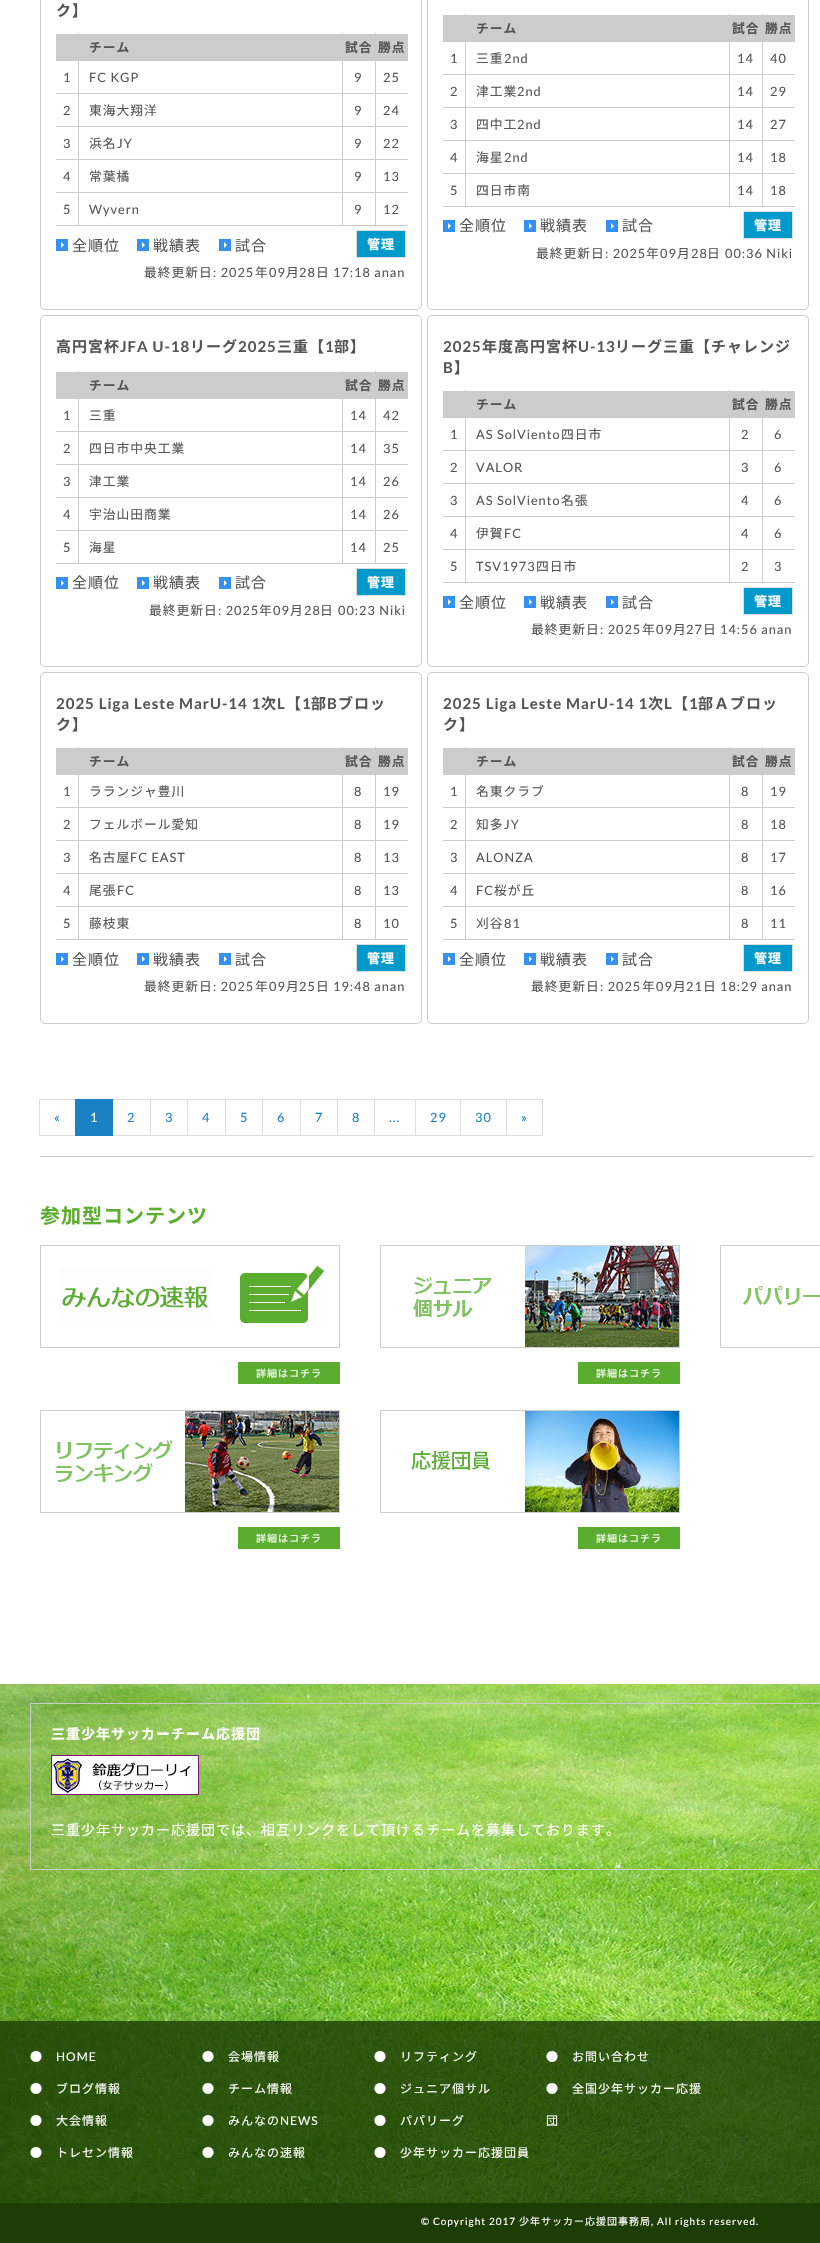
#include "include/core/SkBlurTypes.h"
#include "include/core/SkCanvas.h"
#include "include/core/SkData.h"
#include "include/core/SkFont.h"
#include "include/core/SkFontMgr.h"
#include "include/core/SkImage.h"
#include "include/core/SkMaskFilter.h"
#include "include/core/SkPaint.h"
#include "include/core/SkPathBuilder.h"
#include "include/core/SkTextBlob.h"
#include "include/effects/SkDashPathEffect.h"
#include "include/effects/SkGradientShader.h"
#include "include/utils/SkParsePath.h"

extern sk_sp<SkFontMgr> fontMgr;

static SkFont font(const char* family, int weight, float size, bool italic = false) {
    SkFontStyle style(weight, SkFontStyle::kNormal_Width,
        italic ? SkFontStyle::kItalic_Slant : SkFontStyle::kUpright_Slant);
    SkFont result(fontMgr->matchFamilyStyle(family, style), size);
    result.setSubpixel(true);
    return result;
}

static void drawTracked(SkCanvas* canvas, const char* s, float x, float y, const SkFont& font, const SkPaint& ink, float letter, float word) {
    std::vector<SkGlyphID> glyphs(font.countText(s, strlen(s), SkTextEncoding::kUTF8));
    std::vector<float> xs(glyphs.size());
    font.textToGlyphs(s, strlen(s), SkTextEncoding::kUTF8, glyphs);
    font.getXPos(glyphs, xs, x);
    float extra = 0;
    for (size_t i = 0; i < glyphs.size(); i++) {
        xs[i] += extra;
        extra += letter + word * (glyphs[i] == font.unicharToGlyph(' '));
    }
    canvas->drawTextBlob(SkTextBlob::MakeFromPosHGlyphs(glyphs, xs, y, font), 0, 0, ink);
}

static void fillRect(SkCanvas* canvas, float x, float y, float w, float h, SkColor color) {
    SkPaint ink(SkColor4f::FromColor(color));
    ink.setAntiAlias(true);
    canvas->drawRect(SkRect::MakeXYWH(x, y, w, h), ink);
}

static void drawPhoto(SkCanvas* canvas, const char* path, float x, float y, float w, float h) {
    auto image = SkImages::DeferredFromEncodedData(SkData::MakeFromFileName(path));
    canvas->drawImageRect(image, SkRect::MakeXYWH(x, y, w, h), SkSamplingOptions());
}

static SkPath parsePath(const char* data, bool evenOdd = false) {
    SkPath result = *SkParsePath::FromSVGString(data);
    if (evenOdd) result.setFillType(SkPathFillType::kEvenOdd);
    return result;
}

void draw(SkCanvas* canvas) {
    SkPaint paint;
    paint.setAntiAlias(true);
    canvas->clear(0xFFFFFFFF);
    paint.setStroke(true);
    paint.setStrokeWidth(1);
    paint.setColor(0xFFCCCCCC);
    canvas->drawRoundRect(SkRect::MakeXYWH(40.5f, -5.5f, 381, 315), 4.5f, 4.5f, paint);
    SkFont font1 = font("Noto Sans JP", 700, 15);
    paint.setStroke(false);
    paint.setColor(0xFF555555);
    drawTracked(canvas, "ク】", 56, 16, font1, paint, 1, 0);
    fillRect(canvas, 56, 34, 352, 27, 0xFFCCCCCC);
    fillRect(canvas, 78, 33, 1, 1, 0xFFCCCCCC);
    SkFont font2 = font("Noto Sans JP", 700, 12.75f);
    drawTracked(canvas, "チーム", 89, 52, font2, paint, 1, 0);
    fillRect(canvas, 375, 33, 1, 1, 0xFFCCCCCC);
    fillRect(canvas, 342, 33, 1, 1, 0xFFCCCCCC);
    drawTracked(canvas, "試合", 345, 52, font2, paint, 1, 0);
    drawTracked(canvas, "勝点", 378, 52, font2, paint, 1, 0);
    fillRect(canvas, 56, 93, 352, 1, 0xFFCCCCCC);
    SkFont font3 = font("Lato", 400, 12.75f);
    drawTracked(canvas, "1", 63, 82, font3, paint, 1, 0);
    drawTracked(canvas, "FC KGP", 89, 82, font3, paint, 1, 0);
    drawTracked(canvas, "9", 354, 82, font3, paint, 1, 0);
    drawTracked(canvas, "25", 383, 82, font3, paint, 1, 0);
    fillRect(canvas, 56, 126, 352, 1, 0xFFCCCCCC);
    drawTracked(canvas, "2", 63, 115, font3, paint, 1, 0);
    SkFont font4 = font("Noto Sans JP", 400, 12.75f);
    drawTracked(canvas, "東海⼤翔洋", 89, 115, font4, paint, 1, 0);
    drawTracked(canvas, "9", 354, 115, font3, paint, 1, 0);
    drawTracked(canvas, "24", 383, 115, font3, paint, 1, 0);
    fillRect(canvas, 56, 159, 352, 1, 0xFFCCCCCC);
    drawTracked(canvas, "3", 63, 148, font3, paint, 1, 0);
    drawTracked(canvas, "浜名", 89, 148, font4, paint, 1, 0);
    drawTracked(canvas, "JY", 117, 148, font3, paint, 1, 0);
    drawTracked(canvas, "9", 354, 148, font3, paint, 1, 0);
    drawTracked(canvas, "22", 383, 148, font3, paint, 1, 0);
    fillRect(canvas, 56, 192, 352, 1, 0xFFCCCCCC);
    drawTracked(canvas, "4", 63, 181, font3, paint, 1, 0);
    drawTracked(canvas, "常葉橘", 89, 181, font4, paint, 1, 0);
    drawTracked(canvas, "9", 354, 181, font3, paint, 1, 0);
    drawTracked(canvas, "13", 383, 181, font3, paint, 1, 0);
    fillRect(canvas, 56, 225, 352, 1, 0xFFCCCCCC);
    fillRect(canvas, 78, 60, 1, 166, 0xFFCCCCCC);
    drawTracked(canvas, "5", 63, 214, font3, paint, 1, 0);
    drawTracked(canvas, "Wyvern", 89, 214, font3, paint, 1, 0);
    fillRect(canvas, 375, 60, 1, 166, 0xFFCCCCCC);
    fillRect(canvas, 342, 60, 1, 166, 0xFFCCCCCC);
    drawTracked(canvas, "9", 354, 214, font3, paint, 1, 0);
    drawTracked(canvas, "12", 383, 214, font3, paint, 1, 0);
    fillRect(canvas, 56, 239, 12, 12, 0xFF3491F0);
    SkFont font5 = font("Noto Sans JP", 400, 15);
    drawTracked(canvas, "全順位", 72, 251, font5, paint, 1, 0);
    paint.setColor(0xFFFFFFFF);
    canvas->drawPath(parsePath("M61 248V242L64 245Z"), paint);
    fillRect(canvas, 137, 239, 12, 12, 0xFF3491F0);
    paint.setColor(0xFF555555);
    drawTracked(canvas, "戦績表", 153, 251, font5, paint, 1, 0);
    paint.setColor(0xFFFFFFFF);
    canvas->drawPath(parsePath("M142 248V242L145 245Z"), paint);
    fillRect(canvas, 219, 239, 12, 12, 0xFF3491F0);
    paint.setColor(0xFF555555);
    drawTracked(canvas, "試合", 235, 251, font5, paint, 1, 0);
    paint.setColor(0xFFFFFFFF);
    canvas->drawPath(parsePath("M224 248V242L227 245Z"), paint);
    paint.setColor(0xFF0099CC);
    canvas->drawRect(SkRect::MakeXYWH(356.5f, 230.5f, 49, 27), paint);
    paint.setStroke(true);
    paint.setColor(0xFFDDDDDD);
    canvas->drawRect(SkRect::MakeXYWH(356.5f, 230.5f, 49, 27), paint);
    SkFont font6 = font("Noto Sans JP", 700, 13);
    paint.setStroke(false);
    paint.setColor(0xFFFFFFFF);
    drawTracked(canvas, "管理", 367, 249, font6, paint, 1, 0);
    paint.setColor(0xFF555555);
    drawTracked(canvas, "最終更新日", 144, 277, font4, paint, 1, 0);
    drawTracked(canvas, ": 2025", 213, 277, font3, paint, 1, 0);
    drawTracked(canvas, "年", 255, 277, font4, paint, 1, 0);
    drawTracked(canvas, "09", 269, 277, font3, paint, 1, 0);
    drawTracked(canvas, "月", 286, 277, font4, paint, 1, 0);
    drawTracked(canvas, "28", 299, 277, font3, paint, 1, 0);
    drawTracked(canvas, "日", 316, 277, font4, paint, 1, 0);
    drawTracked(canvas, "17:18 anan", 333, 277, font3, paint, 1, 0);
    paint.setStroke(true);
    paint.setColor(0xFFCCCCCC);
    canvas->drawRoundRect(SkRect::MakeXYWH(427.5f, -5.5f, 381, 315), 4.5f, 4.5f, paint);
    fillRect(canvas, 443, 15, 352, 27, 0xFFCCCCCC);
    fillRect(canvas, 465, 14, 1, 1, 0xFFCCCCCC);
    paint.setStroke(false);
    paint.setColor(0xFF555555);
    drawTracked(canvas, "チーム", 476, 33, font2, paint, 1, 0);
    fillRect(canvas, 762, 14, 1, 1, 0xFFCCCCCC);
    fillRect(canvas, 729, 14, 1, 1, 0xFFCCCCCC);
    drawTracked(canvas, "試合", 732, 33, font2, paint, 1, 0);
    drawTracked(canvas, "勝点", 765, 33, font2, paint, 1, 0);
    fillRect(canvas, 443, 74, 352, 1, 0xFFCCCCCC);
    drawTracked(canvas, "1", 450, 63, font3, paint, 1, 0);
    drawTracked(canvas, "三重", 476, 63, font4, paint, 1, 0);
    drawTracked(canvas, "2nd", 504, 63, font3, paint, 1, 0);
    drawTracked(canvas, "14", 737, 63, font3, paint, 1, 0);
    drawTracked(canvas, "40", 770, 63, font3, paint, 1, 0);
    fillRect(canvas, 443, 107, 352, 1, 0xFFCCCCCC);
    drawTracked(canvas, "2", 450, 96, font3, paint, 1, 0);
    drawTracked(canvas, "津工業", 476, 96, font4, paint, 1, 0);
    drawTracked(canvas, "2nd", 517, 96, font3, paint, 1, 0);
    drawTracked(canvas, "14", 737, 96, font3, paint, 1, 0);
    drawTracked(canvas, "29", 770, 96, font3, paint, 1, 0);
    fillRect(canvas, 443, 140, 352, 1, 0xFFCCCCCC);
    drawTracked(canvas, "3", 450, 129, font3, paint, 1, 0);
    drawTracked(canvas, "四中工", 476, 129, font4, paint, 1, 0);
    drawTracked(canvas, "2nd", 517, 129, font3, paint, 1, 0);
    drawTracked(canvas, "14", 737, 129, font3, paint, 1, 0);
    drawTracked(canvas, "27", 770, 129, font3, paint, 1, 0);
    fillRect(canvas, 443, 173, 352, 1, 0xFFCCCCCC);
    drawTracked(canvas, "4", 450, 162, font3, paint, 1, 0);
    drawTracked(canvas, "海星", 476, 162, font4, paint, 1, 0);
    drawTracked(canvas, "2nd", 504, 162, font3, paint, 1, 0);
    drawTracked(canvas, "14", 737, 162, font3, paint, 1, 0);
    drawTracked(canvas, "18", 770, 162, font3, paint, 1, 0);
    fillRect(canvas, 443, 206, 352, 1, 0xFFCCCCCC);
    fillRect(canvas, 465, 41, 1, 166, 0xFFCCCCCC);
    drawTracked(canvas, "5", 450, 195, font3, paint, 1, 0);
    drawTracked(canvas, "四日市南", 476, 195, font4, paint, 1, 0);
    fillRect(canvas, 762, 41, 1, 166, 0xFFCCCCCC);
    fillRect(canvas, 729, 41, 1, 166, 0xFFCCCCCC);
    drawTracked(canvas, "14", 737, 195, font3, paint, 1, 0);
    drawTracked(canvas, "18", 770, 195, font3, paint, 1, 0);
    fillRect(canvas, 443, 220, 12, 12, 0xFF3491F0);
    drawTracked(canvas, "全順位", 459, 231, font5, paint, 1, 0);
    paint.setColor(0xFFFFFFFF);
    canvas->drawPath(parsePath("M448 229V223L451 226Z"), paint);
    fillRect(canvas, 524, 220, 12, 12, 0xFF3491F0);
    paint.setColor(0xFF555555);
    drawTracked(canvas, "戦績表", 540, 231, font5, paint, 1, 0);
    paint.setColor(0xFFFFFFFF);
    canvas->drawPath(parsePath("M529 229V223L532 226Z"), paint);
    fillRect(canvas, 606, 220, 12, 12, 0xFF3491F0);
    paint.setColor(0xFF555555);
    drawTracked(canvas, "試合", 622, 231, font5, paint, 1, 0);
    paint.setColor(0xFFFFFFFF);
    canvas->drawPath(parsePath("M611 229V223L614 226Z"), paint);
    paint.setColor(0xFF0099CC);
    canvas->drawRect(SkRect::MakeXYWH(743.5f, 211.5f, 49, 27), paint);
    paint.setStroke(true);
    paint.setColor(0xFFDDDDDD);
    canvas->drawRect(SkRect::MakeXYWH(743.5f, 211.5f, 49, 27), paint);
    paint.setStroke(false);
    paint.setColor(0xFFFFFFFF);
    drawTracked(canvas, "管理", 754, 230, font6, paint, 1, 0);
    paint.setColor(0xFF555555);
    drawTracked(canvas, "最終更新日", 536, 258, font4, paint, 1, 0);
    drawTracked(canvas, ": 2025", 605, 258, font3, paint, 1, 0);
    drawTracked(canvas, "年", 646, 258, font4, paint, 1, 0);
    drawTracked(canvas, "09", 660, 258, font3, paint, 1, 0);
    drawTracked(canvas, "月", 677, 258, font4, paint, 1, 0);
    drawTracked(canvas, "28", 691, 258, font3, paint, 1, 0);
    drawTracked(canvas, "日", 707, 258, font4, paint, 1, 0);
    drawTracked(canvas, "00:36 Niki", 725, 258, font3, paint, 1, 0);
    paint.setStroke(true);
    paint.setColor(0xFFCCCCCC);
    canvas->drawRoundRect(SkRect::MakeXYWH(40.5f, 315.5f, 381, 351), 4.5f, 4.5f, paint);
    paint.setStroke(false);
    paint.setColor(0xFF555555);
    drawTracked(canvas, "高円宮杯", 56, 352, font1, paint, 1, 0);
    SkFont font7 = font("Lato", 700, 15);
    drawTracked(canvas, "JFA U-18", 120, 352, font7, paint, 1, 0);
    drawTracked(canvas, "リーグ", 190, 352, font1, paint, 1, 0);
    drawTracked(canvas, "2025", 238, 352, font7, paint, 1, 0);
    drawTracked(canvas, "三重【", 277, 352, font1, paint, 1, 0);
    drawTracked(canvas, "1", 325, 352, font7, paint, 1, 0);
    drawTracked(canvas, "部】", 334, 352, font1, paint, 1, 0);
    fillRect(canvas, 56, 372, 352, 27, 0xFFCCCCCC);
    fillRect(canvas, 78, 371, 1, 1, 0xFFCCCCCC);
    drawTracked(canvas, "チーム", 89, 390, font2, paint, 1, 0);
    fillRect(canvas, 375, 371, 1, 1, 0xFFCCCCCC);
    fillRect(canvas, 342, 371, 1, 1, 0xFFCCCCCC);
    drawTracked(canvas, "試合", 345, 390, font2, paint, 1, 0);
    drawTracked(canvas, "勝点", 378, 390, font2, paint, 1, 0);
    fillRect(canvas, 56, 431, 352, 1, 0xFFCCCCCC);
    drawTracked(canvas, "1", 63, 420, font3, paint, 1, 0);
    drawTracked(canvas, "三重", 89, 420, font4, paint, 1, 0);
    drawTracked(canvas, "14", 350, 420, font3, paint, 1, 0);
    drawTracked(canvas, "42", 383, 420, font3, paint, 1, 0);
    fillRect(canvas, 56, 464, 352, 1, 0xFFCCCCCC);
    drawTracked(canvas, "2", 63, 453, font3, paint, 1, 0);
    drawTracked(canvas, "四日市中央工業", 89, 453, font4, paint, 1, 0);
    drawTracked(canvas, "14", 350, 453, font3, paint, 1, 0);
    drawTracked(canvas, "35", 383, 453, font3, paint, 1, 0);
    fillRect(canvas, 56, 497, 352, 1, 0xFFCCCCCC);
    drawTracked(canvas, "3", 63, 486, font3, paint, 1, 0);
    drawTracked(canvas, "津工業", 89, 486, font4, paint, 1, 0);
    drawTracked(canvas, "14", 350, 486, font3, paint, 1, 0);
    drawTracked(canvas, "26", 383, 486, font3, paint, 1, 0);
    fillRect(canvas, 56, 530, 352, 1, 0xFFCCCCCC);
    drawTracked(canvas, "4", 63, 519, font3, paint, 1, 0);
    drawTracked(canvas, "宇治山田商業", 89, 519, font4, paint, 1, 0);
    drawTracked(canvas, "14", 350, 519, font3, paint, 1, 0);
    drawTracked(canvas, "26", 383, 519, font3, paint, 1, 0);
    fillRect(canvas, 56, 563, 352, 1, 0xFFCCCCCC);
    fillRect(canvas, 78, 398, 1, 166, 0xFFCCCCCC);
    drawTracked(canvas, "5", 63, 552, font3, paint, 1, 0);
    drawTracked(canvas, "海星", 89, 552, font4, paint, 1, 0);
    fillRect(canvas, 375, 398, 1, 166, 0xFFCCCCCC);
    fillRect(canvas, 342, 398, 1, 166, 0xFFCCCCCC);
    drawTracked(canvas, "14", 350, 552, font3, paint, 1, 0);
    drawTracked(canvas, "25", 383, 552, font3, paint, 1, 0);
    fillRect(canvas, 56, 577, 12, 12, 0xFF3491F0);
    drawTracked(canvas, "全順位", 72, 588, font5, paint, 1, 0);
    paint.setColor(0xFFFFFFFF);
    canvas->drawPath(parsePath("M61 586V580L64 583Z"), paint);
    fillRect(canvas, 137, 577, 12, 12, 0xFF3491F0);
    paint.setColor(0xFF555555);
    drawTracked(canvas, "戦績表", 153, 588, font5, paint, 1, 0);
    paint.setColor(0xFFFFFFFF);
    canvas->drawPath(parsePath("M142 586V580L145 583Z"), paint);
    fillRect(canvas, 219, 577, 12, 12, 0xFF3491F0);
    paint.setColor(0xFF555555);
    drawTracked(canvas, "試合", 235, 588, font5, paint, 1, 0);
    paint.setColor(0xFFFFFFFF);
    canvas->drawPath(parsePath("M224 586V580L227 583Z"), paint);
    paint.setColor(0xFF0099CC);
    canvas->drawRect(SkRect::MakeXYWH(356.5f, 568.5f, 49, 27), paint);
    paint.setStroke(true);
    paint.setColor(0xFFDDDDDD);
    canvas->drawRect(SkRect::MakeXYWH(356.5f, 568.5f, 49, 27), paint);
    paint.setStroke(false);
    paint.setColor(0xFFFFFFFF);
    drawTracked(canvas, "管理", 367, 587, font6, paint, 1, 0);
    paint.setColor(0xFF555555);
    drawTracked(canvas, "最終更新日", 149, 615, font4, paint, 1, 0);
    drawTracked(canvas, ": 2025", 218, 615, font3, paint, 1, 0);
    drawTracked(canvas, "年", 259, 615, font4, paint, 1, 0);
    drawTracked(canvas, "09", 273, 615, font3, paint, 1, 0);
    drawTracked(canvas, "月", 290, 615, font4, paint, 1, 0);
    drawTracked(canvas, "28", 304, 615, font3, paint, 1, 0);
    drawTracked(canvas, "日", 320, 615, font4, paint, 1, 0);
    drawTracked(canvas, "00:23 Niki", 338, 615, font3, paint, 1, 0);
    paint.setStroke(true);
    paint.setColor(0xFFCCCCCC);
    canvas->drawRoundRect(SkRect::MakeXYWH(427.5f, 315.5f, 381, 351), 4.5f, 4.5f, paint);
    paint.setStroke(false);
    paint.setColor(0xFF555555);
    drawTracked(canvas, "2025", 443, 352, font7, paint, 1, 0);
    drawTracked(canvas, "年度高円宮杯", 482, 352, font1, paint, 1, 0);
    drawTracked(canvas, "U-13", 578, 352, font7, paint, 1, 0);
    drawTracked(canvas, "リーグ三重【チャレンジ", 615, 352, font1, paint, 1, 0);
    drawTracked(canvas, "B", 443, 373, font7, paint, 1, 0);
    drawTracked(canvas, "】", 454, 373, font1, paint, 1, 0);
    fillRect(canvas, 443, 391, 352, 27, 0xFFCCCCCC);
    fillRect(canvas, 465, 390, 1, 1, 0xFFCCCCCC);
    drawTracked(canvas, "チーム", 476, 409, font2, paint, 1, 0);
    fillRect(canvas, 762, 390, 1, 1, 0xFFCCCCCC);
    fillRect(canvas, 729, 390, 1, 1, 0xFFCCCCCC);
    drawTracked(canvas, "試合", 732, 409, font2, paint, 1, 0);
    drawTracked(canvas, "勝点", 765, 409, font2, paint, 1, 0);
    fillRect(canvas, 443, 450, 352, 1, 0xFFCCCCCC);
    drawTracked(canvas, "1", 450, 439, font3, paint, 1, 0);
    drawTracked(canvas, "AS SolViento", 476, 439, font3, paint, 1, 0);
    drawTracked(canvas, "四日市", 561, 439, font4, paint, 1, 0);
    drawTracked(canvas, "2", 741, 439, font3, paint, 1, 0);
    drawTracked(canvas, "6", 774, 439, font3, paint, 1, 0);
    fillRect(canvas, 443, 483, 352, 1, 0xFFCCCCCC);
    drawTracked(canvas, "2", 450, 472, font3, paint, 1, 0);
    drawTracked(canvas, "VALOR", 476, 472, font3, paint, 1, 0);
    drawTracked(canvas, "3", 741, 472, font3, paint, 1, 0);
    drawTracked(canvas, "6", 774, 472, font3, paint, 1, 0);
    fillRect(canvas, 443, 516, 352, 1, 0xFFCCCCCC);
    drawTracked(canvas, "3", 450, 505, font3, paint, 1, 0);
    drawTracked(canvas, "AS SolViento", 476, 505, font3, paint, 1, 0);
    drawTracked(canvas, "名張", 561, 505, font4, paint, 1, 0);
    drawTracked(canvas, "4", 741, 505, font3, paint, 1, 0);
    drawTracked(canvas, "6", 774, 505, font3, paint, 1, 0);
    fillRect(canvas, 443, 549, 352, 1, 0xFFCCCCCC);
    drawTracked(canvas, "4", 450, 538, font3, paint, 1, 0);
    drawTracked(canvas, "伊賀", 476, 538, font4, paint, 1, 0);
    drawTracked(canvas, "FC", 504, 538, font3, paint, 1, 0);
    drawTracked(canvas, "4", 741, 538, font3, paint, 1, 0);
    drawTracked(canvas, "6", 774, 538, font3, paint, 1, 0);
    fillRect(canvas, 443, 582, 352, 1, 0xFFCCCCCC);
    fillRect(canvas, 465, 417, 1, 166, 0xFFCCCCCC);
    drawTracked(canvas, "5", 450, 571, font3, paint, 1, 0);
    drawTracked(canvas, "TSV1973", 476, 571, font3, paint, 1, 0);
    drawTracked(canvas, "四日市", 536, 571, font4, paint, 1, 0);
    fillRect(canvas, 762, 417, 1, 166, 0xFFCCCCCC);
    fillRect(canvas, 729, 417, 1, 166, 0xFFCCCCCC);
    drawTracked(canvas, "2", 741, 571, font3, paint, 1, 0);
    drawTracked(canvas, "3", 774, 571, font3, paint, 1, 0);
    fillRect(canvas, 443, 596, 12, 12, 0xFF3491F0);
    drawTracked(canvas, "全順位", 459, 608, font5, paint, 1, 0);
    paint.setColor(0xFFFFFFFF);
    canvas->drawPath(parsePath("M448 605V599L451 602Z"), paint);
    fillRect(canvas, 524, 596, 12, 12, 0xFF3491F0);
    paint.setColor(0xFF555555);
    drawTracked(canvas, "戦績表", 540, 608, font5, paint, 1, 0);
    paint.setColor(0xFFFFFFFF);
    canvas->drawPath(parsePath("M529 605V599L532 602Z"), paint);
    fillRect(canvas, 606, 596, 12, 12, 0xFF3491F0);
    paint.setColor(0xFF555555);
    drawTracked(canvas, "試合", 622, 608, font5, paint, 1, 0);
    paint.setColor(0xFFFFFFFF);
    canvas->drawPath(parsePath("M611 605V599L614 602Z"), paint);
    paint.setColor(0xFF0099CC);
    canvas->drawRect(SkRect::MakeXYWH(743.5f, 587.5f, 49, 27), paint);
    paint.setStroke(true);
    paint.setColor(0xFFDDDDDD);
    canvas->drawRect(SkRect::MakeXYWH(743.5f, 587.5f, 49, 27), paint);
    paint.setStroke(false);
    paint.setColor(0xFFFFFFFF);
    drawTracked(canvas, "管理", 754, 606, font6, paint, 1, 0);
    paint.setColor(0xFF555555);
    drawTracked(canvas, "最終更新日", 531, 634, font4, paint, 1, 0);
    drawTracked(canvas, ": 2025", 600, 634, font3, paint, 1, 0);
    drawTracked(canvas, "年", 642, 634, font4, paint, 1, 0);
    drawTracked(canvas, "09", 656, 634, font3, paint, 1, 0);
    drawTracked(canvas, "月", 673, 634, font4, paint, 1, 0);
    drawTracked(canvas, "27", 686, 634, font3, paint, 1, 0);
    drawTracked(canvas, "日", 703, 634, font4, paint, 1, 0);
    drawTracked(canvas, "14:56 anan", 720, 634, font3, paint, 1, 0);
    paint.setStroke(true);
    paint.setColor(0xFFCCCCCC);
    canvas->drawRoundRect(SkRect::MakeXYWH(40.5f, 672.5f, 381, 351), 4.5f, 4.5f, paint);
    paint.setStroke(false);
    paint.setColor(0xFF555555);
    drawTracked(canvas, "2025 Liga Leste MarU-14 1", 56, 709, font7, paint, 1, 0);
    drawTracked(canvas, "次", 261, 709, font1, paint, 1, 0);
    drawTracked(canvas, "L", 277, 709, font7, paint, 1, 0);
    drawTracked(canvas, "【", 286, 709, font1, paint, 1, 0);
    drawTracked(canvas, "1", 302, 709, font7, paint, 1, 0);
    drawTracked(canvas, "部", 311, 709, font1, paint, 1, 0);
    drawTracked(canvas, "B", 327, 709, font7, paint, 1, 0);
    drawTracked(canvas, "ブロッ", 338, 709, font1, paint, 1, 0);
    drawTracked(canvas, "ク】", 56, 730, font1, paint, 1, 0);
    fillRect(canvas, 56, 748, 352, 27, 0xFFCCCCCC);
    fillRect(canvas, 78, 747, 1, 1, 0xFFCCCCCC);
    drawTracked(canvas, "チーム", 89, 766, font2, paint, 1, 0);
    fillRect(canvas, 375, 747, 1, 1, 0xFFCCCCCC);
    fillRect(canvas, 342, 747, 1, 1, 0xFFCCCCCC);
    drawTracked(canvas, "試合", 345, 766, font2, paint, 1, 0);
    drawTracked(canvas, "勝点", 378, 766, font2, paint, 1, 0);
    fillRect(canvas, 56, 807, 352, 1, 0xFFCCCCCC);
    drawTracked(canvas, "1", 63, 796, font3, paint, 1, 0);
    drawTracked(canvas, "ラランジャ豊川", 89, 796, font4, paint, 1, 0);
    drawTracked(canvas, "8", 354, 796, font3, paint, 1, 0);
    drawTracked(canvas, "19", 383, 796, font3, paint, 1, 0);
    fillRect(canvas, 56, 840, 352, 1, 0xFFCCCCCC);
    drawTracked(canvas, "2", 63, 829, font3, paint, 1, 0);
    drawTracked(canvas, "フェルボール愛知", 89, 829, font4, paint, 1, 0);
    drawTracked(canvas, "8", 354, 829, font3, paint, 1, 0);
    drawTracked(canvas, "19", 383, 829, font3, paint, 1, 0);
    fillRect(canvas, 56, 873, 352, 1, 0xFFCCCCCC);
    drawTracked(canvas, "3", 63, 862, font3, paint, 1, 0);
    drawTracked(canvas, "名古屋", 89, 862, font4, paint, 1, 0);
    drawTracked(canvas, "FC EAST", 130, 862, font3, paint, 1, 0);
    drawTracked(canvas, "8", 354, 862, font3, paint, 1, 0);
    drawTracked(canvas, "13", 383, 862, font3, paint, 1, 0);
    fillRect(canvas, 56, 906, 352, 1, 0xFFCCCCCC);
    drawTracked(canvas, "4", 63, 895, font3, paint, 1, 0);
    drawTracked(canvas, "尾張", 89, 895, font4, paint, 1, 0);
    drawTracked(canvas, "FC", 117, 895, font3, paint, 1, 0);
    drawTracked(canvas, "8", 354, 895, font3, paint, 1, 0);
    drawTracked(canvas, "13", 383, 895, font3, paint, 1, 0);
    fillRect(canvas, 56, 939, 352, 1, 0xFFCCCCCC);
    fillRect(canvas, 78, 774, 1, 166, 0xFFCCCCCC);
    drawTracked(canvas, "5", 63, 928, font3, paint, 1, 0);
    drawTracked(canvas, "藤枝東", 89, 928, font4, paint, 1, 0);
    fillRect(canvas, 375, 774, 1, 166, 0xFFCCCCCC);
    fillRect(canvas, 342, 774, 1, 166, 0xFFCCCCCC);
    drawTracked(canvas, "8", 354, 928, font3, paint, 1, 0);
    drawTracked(canvas, "10", 383, 928, font3, paint, 1, 0);
    fillRect(canvas, 56, 953, 12, 12, 0xFF3491F0);
    drawTracked(canvas, "全順位", 72, 965, font5, paint, 1, 0);
    paint.setColor(0xFFFFFFFF);
    canvas->drawPath(parsePath("M61 962V956L64 959Z"), paint);
    fillRect(canvas, 137, 953, 12, 12, 0xFF3491F0);
    paint.setColor(0xFF555555);
    drawTracked(canvas, "戦績表", 153, 965, font5, paint, 1, 0);
    paint.setColor(0xFFFFFFFF);
    canvas->drawPath(parsePath("M142 962V956L145 959Z"), paint);
    fillRect(canvas, 219, 953, 12, 12, 0xFF3491F0);
    paint.setColor(0xFF555555);
    drawTracked(canvas, "試合", 235, 965, font5, paint, 1, 0);
    paint.setColor(0xFFFFFFFF);
    canvas->drawPath(parsePath("M224 962V956L227 959Z"), paint);
    paint.setColor(0xFF0099CC);
    canvas->drawRect(SkRect::MakeXYWH(356.5f, 944.5f, 49, 27), paint);
    paint.setStroke(true);
    paint.setColor(0xFFDDDDDD);
    canvas->drawRect(SkRect::MakeXYWH(356.5f, 944.5f, 49, 27), paint);
    paint.setStroke(false);
    paint.setColor(0xFFFFFFFF);
    drawTracked(canvas, "管理", 367, 963, font6, paint, 1, 0);
    paint.setColor(0xFF555555);
    drawTracked(canvas, "最終更新日", 144, 991, font4, paint, 1, 0);
    drawTracked(canvas, ": 2025", 213, 991, font3, paint, 1, 0);
    drawTracked(canvas, "年", 255, 991, font4, paint, 1, 0);
    drawTracked(canvas, "09", 269, 991, font3, paint, 1, 0);
    drawTracked(canvas, "月", 286, 991, font4, paint, 1, 0);
    drawTracked(canvas, "25", 299, 991, font3, paint, 1, 0);
    drawTracked(canvas, "日", 316, 991, font4, paint, 1, 0);
    drawTracked(canvas, "19:48 anan", 333, 991, font3, paint, 1, 0);
    paint.setStroke(true);
    paint.setColor(0xFFCCCCCC);
    canvas->drawRoundRect(SkRect::MakeXYWH(427.5f, 672.5f, 381, 351), 4.5f, 4.5f, paint);
    paint.setStroke(false);
    paint.setColor(0xFF555555);
    drawTracked(canvas, "2025 Liga Leste MarU-14 1", 443, 709, font7, paint, 1, 0);
    drawTracked(canvas, "次", 648, 709, font1, paint, 1, 0);
    drawTracked(canvas, "L", 664, 709, font7, paint, 1, 0);
    drawTracked(canvas, "【", 673, 709, font1, paint, 1, 0);
    drawTracked(canvas, "1", 689, 709, font7, paint, 1, 0);
    drawTracked(canvas, "部Ａブロッ", 698, 709, font1, paint, 1, 0);
    drawTracked(canvas, "ク】", 443, 730, font1, paint, 1, 0);
    fillRect(canvas, 443, 748, 352, 27, 0xFFCCCCCC);
    fillRect(canvas, 465, 747, 1, 1, 0xFFCCCCCC);
    drawTracked(canvas, "チーム", 476, 766, font2, paint, 1, 0);
    fillRect(canvas, 762, 747, 1, 1, 0xFFCCCCCC);
    fillRect(canvas, 729, 747, 1, 1, 0xFFCCCCCC);
    drawTracked(canvas, "試合", 732, 766, font2, paint, 1, 0);
    drawTracked(canvas, "勝点", 765, 766, font2, paint, 1, 0);
    fillRect(canvas, 443, 807, 352, 1, 0xFFCCCCCC);
    drawTracked(canvas, "1", 450, 796, font3, paint, 1, 0);
    drawTracked(canvas, "名東クラブ", 476, 796, font4, paint, 1, 0);
    drawTracked(canvas, "8", 741, 796, font3, paint, 1, 0);
    drawTracked(canvas, "19", 770, 796, font3, paint, 1, 0);
    fillRect(canvas, 443, 840, 352, 1, 0xFFCCCCCC);
    drawTracked(canvas, "2", 450, 829, font3, paint, 1, 0);
    drawTracked(canvas, "知多", 476, 829, font4, paint, 1, 0);
    drawTracked(canvas, "JY", 504, 829, font3, paint, 1, 0);
    drawTracked(canvas, "8", 741, 829, font3, paint, 1, 0);
    drawTracked(canvas, "18", 770, 829, font3, paint, 1, 0);
    fillRect(canvas, 443, 873, 352, 1, 0xFFCCCCCC);
    drawTracked(canvas, "3", 450, 862, font3, paint, 1, 0);
    drawTracked(canvas, "ALONZA", 476, 862, font3, paint, 1, 0);
    drawTracked(canvas, "8", 741, 862, font3, paint, 1, 0);
    drawTracked(canvas, "17", 770, 862, font3, paint, 1, 0);
    fillRect(canvas, 443, 906, 352, 1, 0xFFCCCCCC);
    drawTracked(canvas, "4", 450, 895, font3, paint, 1, 0);
    drawTracked(canvas, "FC", 476, 895, font3, paint, 1, 0);
    drawTracked(canvas, "桜が丘", 494, 895, font4, paint, 1, 0);
    drawTracked(canvas, "8", 741, 895, font3, paint, 1, 0);
    drawTracked(canvas, "16", 770, 895, font3, paint, 1, 0);
    fillRect(canvas, 443, 939, 352, 1, 0xFFCCCCCC);
    fillRect(canvas, 465, 774, 1, 166, 0xFFCCCCCC);
    drawTracked(canvas, "5", 450, 928, font3, paint, 1, 0);
    drawTracked(canvas, "刈谷", 476, 928, font4, paint, 1, 0);
    drawTracked(canvas, "81", 504, 928, font3, paint, 1, 0);
    fillRect(canvas, 762, 774, 1, 166, 0xFFCCCCCC);
    fillRect(canvas, 729, 774, 1, 166, 0xFFCCCCCC);
    drawTracked(canvas, "8", 741, 928, font3, paint, 1, 0);
    drawTracked(canvas, "11", 770, 928, font3, paint, 1, 0);
    fillRect(canvas, 443, 953, 12, 12, 0xFF3491F0);
    drawTracked(canvas, "全順位", 459, 965, font5, paint, 1, 0);
    paint.setColor(0xFFFFFFFF);
    canvas->drawPath(parsePath("M448 962V956L451 959Z"), paint);
    fillRect(canvas, 524, 953, 12, 12, 0xFF3491F0);
    paint.setColor(0xFF555555);
    drawTracked(canvas, "戦績表", 540, 965, font5, paint, 1, 0);
    paint.setColor(0xFFFFFFFF);
    canvas->drawPath(parsePath("M529 962V956L532 959Z"), paint);
    fillRect(canvas, 606, 953, 12, 12, 0xFF3491F0);
    paint.setColor(0xFF555555);
    drawTracked(canvas, "試合", 622, 965, font5, paint, 1, 0);
    paint.setColor(0xFFFFFFFF);
    canvas->drawPath(parsePath("M611 962V956L614 959Z"), paint);
    paint.setColor(0xFF0099CC);
    canvas->drawRect(SkRect::MakeXYWH(743.5f, 944.5f, 49, 27), paint);
    paint.setStroke(true);
    paint.setColor(0xFFDDDDDD);
    canvas->drawRect(SkRect::MakeXYWH(743.5f, 944.5f, 49, 27), paint);
    paint.setStroke(false);
    paint.setColor(0xFFFFFFFF);
    drawTracked(canvas, "管理", 754, 963, font6, paint, 1, 0);
    paint.setColor(0xFF555555);
    drawTracked(canvas, "最終更新日", 531, 991, font4, paint, 1, 0);
    drawTracked(canvas, ": 2025", 600, 991, font3, paint, 1, 0);
    drawTracked(canvas, "年", 642, 991, font4, paint, 1, 0);
    drawTracked(canvas, "09", 656, 991, font3, paint, 1, 0);
    drawTracked(canvas, "月", 673, 991, font4, paint, 1, 0);
    drawTracked(canvas, "21", 686, 991, font3, paint, 1, 0);
    drawTracked(canvas, "日", 703, 991, font4, paint, 1, 0);
    drawTracked(canvas, "18:29 anan", 720, 991, font3, paint, 1, 0);
    fillRect(canvas, 40, 1156, 774, 1, 0xFFCCCCCC);
    paint.setStroke(true);
    paint.setColor(0xFFDDDDDD);
    canvas->drawRect(SkRect::MakeXYWH(39.5f, 1099.5f, 36, 36), paint);
    paint.setStroke(false);
    paint.setColor(0xFF1A82C3);
    drawTracked(canvas, "«", 54, 1122, font3, paint, 1, 0);
    paint.setStroke(true);
    paint.setColor(0xFFDDDDDD);
    canvas->drawRect(SkRect::MakeXYWH(112.5f, 1099.5f, 38, 36), paint);
    fillRect(canvas, 75, 1099, 38, 37, 0xFF1A82C3);
    paint.setStroke(false);
    paint.setColor(0xFFFFFFFF);
    drawTracked(canvas, "1", 90, 1122, font3, paint, 1, 0);
    paint.setColor(0xFF1A82C3);
    drawTracked(canvas, "2", 127, 1122, font3, paint, 1, 0);
    paint.setStroke(true);
    paint.setColor(0xFFDDDDDD);
    canvas->drawRect(SkRect::MakeXYWH(150.5f, 1099.5f, 37, 36), paint);
    paint.setStroke(false);
    paint.setColor(0xFF1A82C3);
    drawTracked(canvas, "3", 165, 1122, font3, paint, 1, 0);
    paint.setStroke(true);
    paint.setColor(0xFFDDDDDD);
    canvas->drawRect(SkRect::MakeXYWH(187.5f, 1099.5f, 38, 36), paint);
    paint.setStroke(false);
    paint.setColor(0xFF1A82C3);
    drawTracked(canvas, "4", 202, 1122, font3, paint, 1, 0);
    paint.setStroke(true);
    paint.setColor(0xFFDDDDDD);
    canvas->drawRect(SkRect::MakeXYWH(225.5f, 1099.5f, 37, 36), paint);
    paint.setStroke(false);
    paint.setColor(0xFF1A82C3);
    drawTracked(canvas, "5", 240, 1122, font3, paint, 1, 0);
    paint.setStroke(true);
    paint.setColor(0xFFDDDDDD);
    canvas->drawRect(SkRect::MakeXYWH(262.5f, 1099.5f, 38, 36), paint);
    paint.setStroke(false);
    paint.setColor(0xFF1A82C3);
    drawTracked(canvas, "6", 277, 1122, font3, paint, 1, 0);
    paint.setStroke(true);
    paint.setColor(0xFFDDDDDD);
    canvas->drawRect(SkRect::MakeXYWH(300.5f, 1099.5f, 37, 36), paint);
    paint.setStroke(false);
    paint.setColor(0xFF1A82C3);
    drawTracked(canvas, "7", 315, 1122, font3, paint, 1, 0);
    paint.setStroke(true);
    paint.setColor(0xFFDDDDDD);
    canvas->drawRect(SkRect::MakeXYWH(337.5f, 1099.5f, 37, 36), paint);
    paint.setStroke(false);
    paint.setColor(0xFF1A82C3);
    drawTracked(canvas, "8", 352, 1122, font3, paint, 1, 0);
    paint.setStroke(true);
    paint.setColor(0xFFDDDDDD);
    canvas->drawRect(SkRect::MakeXYWH(374.5f, 1099.5f, 41, 36), paint);
    paint.setStroke(false);
    paint.setColor(0xFF1A82C3);
    drawTracked(canvas, "...", 389, 1122, font3, paint, 1, 0);
    paint.setStroke(true);
    paint.setColor(0xFFDDDDDD);
    canvas->drawRect(SkRect::MakeXYWH(415.5f, 1099.5f, 45, 36), paint);
    paint.setStroke(false);
    paint.setColor(0xFF1A82C3);
    drawTracked(canvas, "29", 430, 1122, font3, paint, 1, 0);
    paint.setStroke(true);
    paint.setColor(0xFFDDDDDD);
    canvas->drawRect(SkRect::MakeXYWH(460.5f, 1099.5f, 46, 36), paint);
    paint.setStroke(false);
    paint.setColor(0xFF1A82C3);
    drawTracked(canvas, "30", 475, 1122, font3, paint, 1, 0);
    paint.setStroke(true);
    paint.setColor(0xFFDDDDDD);
    canvas->drawRect(SkRect::MakeXYWH(506.5f, 1099.5f, 36, 36), paint);
    paint.setStroke(false);
    paint.setColor(0xFF1A82C3);
    drawTracked(canvas, "»", 521, 1122, font3, paint, 1, 0);
    SkFont font8 = font("Noto Sans JP", 700, 20);
    paint.setColor(0xFF5AAD2E);
    drawTracked(canvas, "参加型コンテンツ", 40, 1223, font8, paint, 1, 0);
    drawPhoto(canvas, "assets/img1.png", 720, 1245, 100, 103);
    drawPhoto(canvas, "assets/img2.png", 40, 1245, 300, 103);
    fillRect(canvas, 238, 1362, 102, 22, 0xFF5AAD2E);
    SkFont font9 = font("Noto Sans JP", 400, 10);
    paint.setColor(0xFFFFFFFF);
    drawTracked(canvas, "詳細はコチラ", 256, 1377, font9, paint, 1, 0);
    drawPhoto(canvas, "assets/img3.png", 380, 1245, 300, 103);
    fillRect(canvas, 578, 1362, 102, 22, 0xFF5AAD2E);
    drawTracked(canvas, "詳細はコチラ", 596, 1377, font9, paint, 1, 0);
    drawPhoto(canvas, "assets/img4.png", 40, 1410, 300, 103);
    fillRect(canvas, 238, 1527, 102, 22, 0xFF5AAD2E);
    drawTracked(canvas, "詳細はコチラ", 256, 1542, font9, paint, 1, 0);
    drawPhoto(canvas, "assets/img5.png", 380, 1410, 300, 103);
    fillRect(canvas, 578, 1527, 102, 22, 0xFF5AAD2E);
    drawTracked(canvas, "詳細はコチラ", 596, 1542, font9, paint, 1, 0);
    drawPhoto(canvas, "assets/img6.png", 0, 1684, 820, 297);
    paint.setStroke(true);
    paint.setColor(0xFFCCCCCC);
    canvas->drawRect(SkRect::MakeXYWH(30.5f, 1703.5f, 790, 166), paint);
    SkFont font10 = font("Noto Sans JP", 700, 14);
    paint.setStroke(false);
    paint.setColor(0xFFFFFFFF);
    drawTracked(canvas, "三重少年サッカーチーム応援団", 51, 1739, font10, paint, 1, 0);
    drawPhoto(canvas, "assets/img7.png", 51, 1755, 148, 40);
    SkFont font11 = font("Noto Sans JP", 400, 14);
    drawTracked(canvas, "三重少年サッカー応援団では、相互リンクをして頂けるチームを募集しております。", 51, 1835, font11, paint, 1, 0);
    drawPhoto(canvas, "assets/img8.png", 0, 1981, 820, 262);
    SkFont font12 = font("Noto Sans JP", 400, 12);
    drawTracked(canvas, "●", 30, 2061, font12, paint, 1, 0);
    SkFont font13 = font("Lato", 400, 12);
    drawTracked(canvas, "HOME", 56, 2061, font13, paint, 1, 0);
    drawTracked(canvas, "●", 30, 2093, font12, paint, 1, 0);
    drawTracked(canvas, "ブログ情報", 56, 2093, font12, paint, 1, 0);
    drawTracked(canvas, "●", 30, 2125, font12, paint, 1, 0);
    drawTracked(canvas, "大会情報", 56, 2125, font12, paint, 1, 0);
    drawTracked(canvas, "●", 30, 2157, font12, paint, 1, 0);
    drawTracked(canvas, "トレセン情報", 56, 2157, font12, paint, 1, 0);
    drawTracked(canvas, "●", 202, 2061, font12, paint, 1, 0);
    drawTracked(canvas, "会場情報", 228, 2061, font12, paint, 1, 0);
    drawTracked(canvas, "●", 202, 2093, font12, paint, 1, 0);
    drawTracked(canvas, "チーム情報", 228, 2093, font12, paint, 1, 0);
    drawTracked(canvas, "●", 202, 2125, font12, paint, 1, 0);
    drawTracked(canvas, "みんなの", 228, 2125, font12, paint, 1, 0);
    drawTracked(canvas, "NEWS", 280, 2125, font13, paint, 1, 0);
    drawTracked(canvas, "●", 202, 2157, font12, paint, 1, 0);
    drawTracked(canvas, "みんなの速報", 228, 2157, font12, paint, 1, 0);
    drawTracked(canvas, "●", 374, 2061, font12, paint, 1, 0);
    drawTracked(canvas, "リフティング", 400, 2061, font12, paint, 1, 0);
    drawTracked(canvas, "●", 374, 2093, font12, paint, 1, 0);
    drawTracked(canvas, "ジュニア個サル", 400, 2093, font12, paint, 1, 0);
    drawTracked(canvas, "●", 374, 2125, font12, paint, 1, 0);
    drawTracked(canvas, "パパリーグ", 400, 2125, font12, paint, 1, 0);
    drawTracked(canvas, "●", 374, 2157, font12, paint, 1, 0);
    drawTracked(canvas, "少年サッカー応援団員", 400, 2157, font12, paint, 1, 0);
    drawTracked(canvas, "●", 546, 2061, font12, paint, 1, 0);
    drawTracked(canvas, "お問い合わせ", 572, 2061, font12, paint, 1, 0);
    drawTracked(canvas, "●", 546, 2093, font12, paint, 1, 0);
    drawTracked(canvas, "全国少年サッカー応援", 572, 2093, font12, paint, 1, 0);
    drawTracked(canvas, "団", 546, 2125, font12, paint, 1, 0);
    SkFont font14 = font("Lato", 400, 10);
    drawTracked(canvas, "© Copyright 2017", 421, 2225, font14, paint, 1, 0);
    drawTracked(canvas, "少年サッカー応援団事務局", 519, 2225, font9, paint, 1, 0);
    drawTracked(canvas, ", All rights reserved.", 651, 2225, font14, paint, 1, 0);
}
